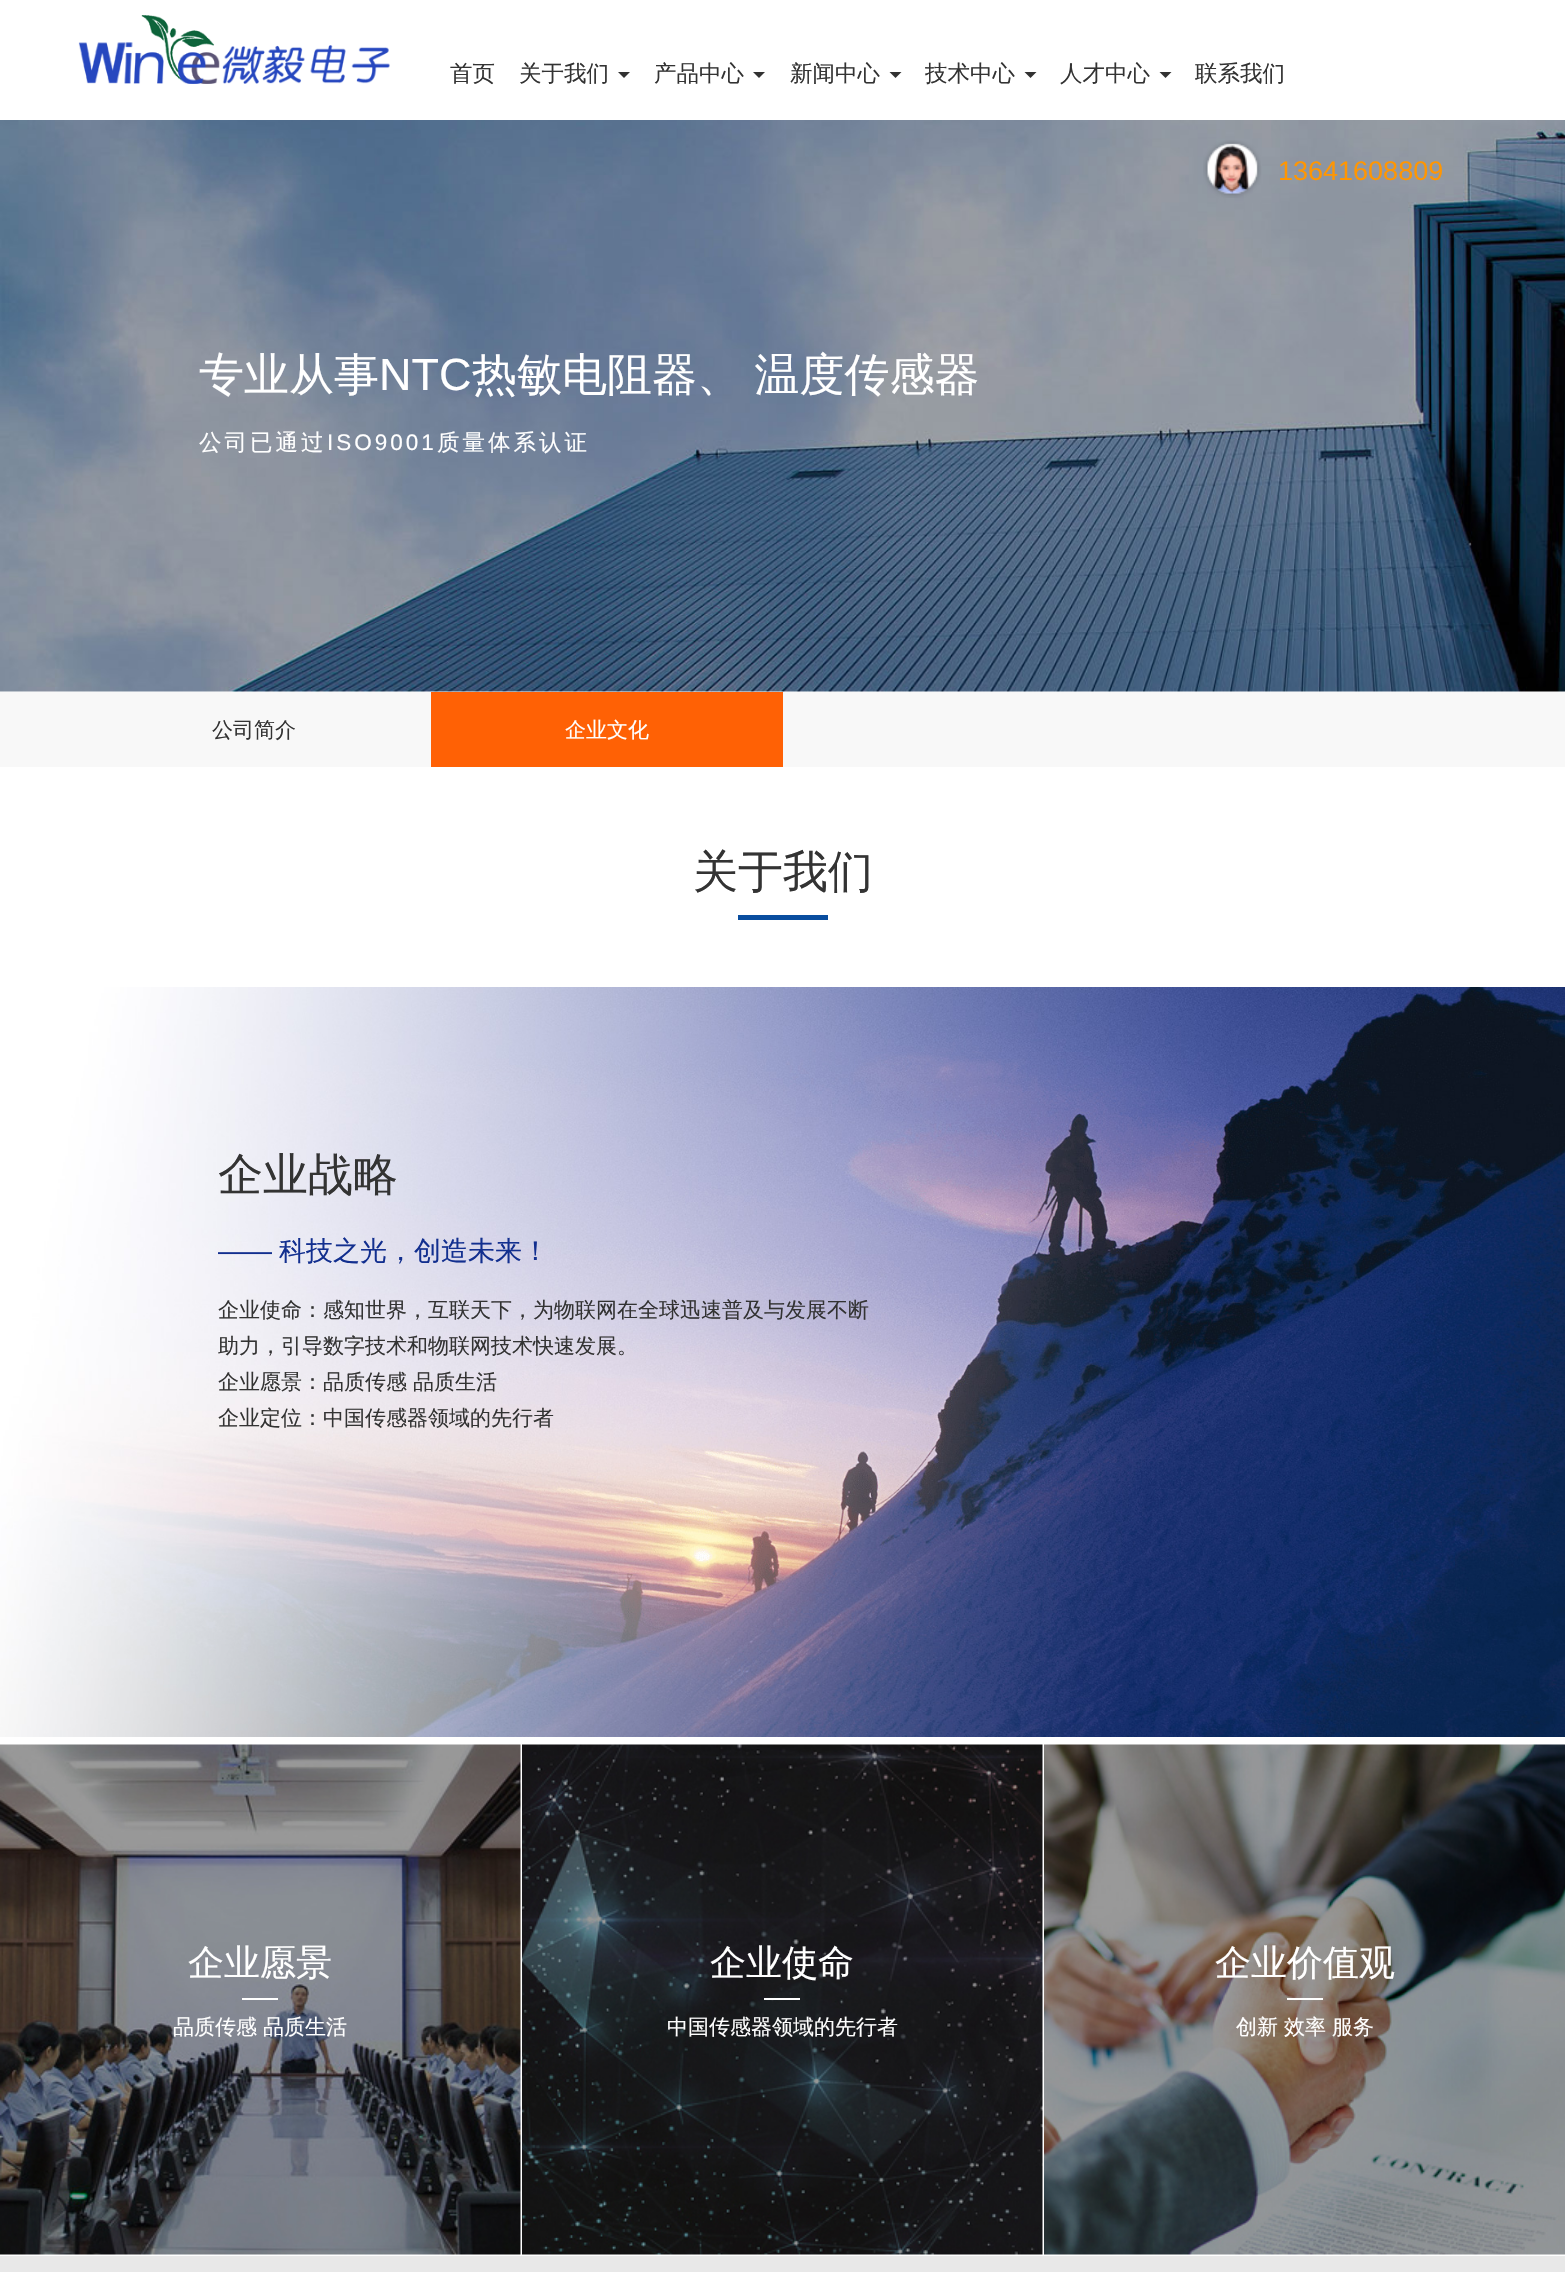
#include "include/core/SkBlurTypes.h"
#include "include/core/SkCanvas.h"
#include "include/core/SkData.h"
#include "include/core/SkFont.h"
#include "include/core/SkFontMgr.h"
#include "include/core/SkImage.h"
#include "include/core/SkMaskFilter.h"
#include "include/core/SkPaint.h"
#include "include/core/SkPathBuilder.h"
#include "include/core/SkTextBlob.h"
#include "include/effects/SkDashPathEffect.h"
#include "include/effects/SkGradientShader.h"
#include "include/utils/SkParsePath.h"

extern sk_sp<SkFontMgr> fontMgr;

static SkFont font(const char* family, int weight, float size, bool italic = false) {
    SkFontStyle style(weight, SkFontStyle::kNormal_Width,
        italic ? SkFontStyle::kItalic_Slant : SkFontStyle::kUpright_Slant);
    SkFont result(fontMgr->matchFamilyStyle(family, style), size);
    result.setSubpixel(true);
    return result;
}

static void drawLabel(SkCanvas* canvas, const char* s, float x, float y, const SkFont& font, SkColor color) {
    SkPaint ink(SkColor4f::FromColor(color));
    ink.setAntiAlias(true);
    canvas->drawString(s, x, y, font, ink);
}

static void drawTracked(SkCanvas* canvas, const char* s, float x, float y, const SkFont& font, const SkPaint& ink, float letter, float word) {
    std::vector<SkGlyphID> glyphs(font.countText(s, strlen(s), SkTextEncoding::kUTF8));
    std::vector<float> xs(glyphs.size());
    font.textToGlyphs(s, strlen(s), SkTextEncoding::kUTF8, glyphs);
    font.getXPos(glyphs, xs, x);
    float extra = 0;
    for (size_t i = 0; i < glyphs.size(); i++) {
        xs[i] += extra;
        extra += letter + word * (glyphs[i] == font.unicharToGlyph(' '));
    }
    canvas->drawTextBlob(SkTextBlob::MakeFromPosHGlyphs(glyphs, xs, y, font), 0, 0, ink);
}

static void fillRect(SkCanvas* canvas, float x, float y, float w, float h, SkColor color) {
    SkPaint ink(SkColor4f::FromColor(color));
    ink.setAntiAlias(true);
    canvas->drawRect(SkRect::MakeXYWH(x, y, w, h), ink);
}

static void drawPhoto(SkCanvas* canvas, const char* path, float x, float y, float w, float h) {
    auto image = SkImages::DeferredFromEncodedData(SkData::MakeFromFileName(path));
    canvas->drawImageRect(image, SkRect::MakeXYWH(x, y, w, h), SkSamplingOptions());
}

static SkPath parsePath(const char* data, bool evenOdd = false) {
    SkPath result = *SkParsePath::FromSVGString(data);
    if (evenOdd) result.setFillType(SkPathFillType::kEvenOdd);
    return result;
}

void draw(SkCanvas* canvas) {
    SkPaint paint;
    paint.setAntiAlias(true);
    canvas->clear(0xFFFFFFFF);
    drawPhoto(canvas, "assets/img2.png", 92, 15, 125, 69);
    drawPhoto(canvas, "assets/img1.png", 78, 15, 312, 69);
    SkFont font1 = font("WenQuanYi Zen Hei", 500, 22.5f);
    drawLabel(canvas, "首页", 450, 81, font1, 0xFF333333);
    drawLabel(canvas, "关于我们", 519, 81, font1, 0xFF333333);
    paint.setColor(0xFF323232);
    canvas->drawPath(parsePath("M618 72H630L624 78Z"), paint);
    drawLabel(canvas, "产品中心", 654, 81, font1, 0xFF333333);
    canvas->drawPath(parsePath("M753 72H765L759 78Z"), paint);
    drawLabel(canvas, "新闻中心", 790, 81, font1, 0xFF333333);
    canvas->drawPath(parsePath("M889.5 72H901.5L895.5 78Z"), paint);
    drawLabel(canvas, "技术中心", 925, 81, font1, 0xFF333333);
    canvas->drawPath(parsePath("M1024.5 72H1036.5L1030.5 78Z"), paint);
    drawLabel(canvas, "人才中心", 1060, 81, font1, 0xFF333333);
    canvas->drawPath(parsePath("M1159.5 72H1171.5L1165.5 78Z"), paint);
    drawLabel(canvas, "联系我们", 1195, 81, font1, 0xFF333333);
    drawPhoto(canvas, "assets/img4.png", 0, 120, 1565, 572);
    drawPhoto(canvas, "assets/img3.png", 1203, 140, 58, 58);
    SkFont font2 = font("Liberation Sans", 400, 27);
    drawLabel(canvas, "13641608809", 1278, 180, font2, 0xFFFF9602);
    SkFont font3 = font("WenQuanYi Zen Hei", 500, 45);
    drawLabel(canvas, "专业从事", 199, 390, font3, 0xFFFFFFFF);
    SkFont font4 = font("Liberation Sans", 400, 45);
    drawLabel(canvas, "NTC", 379, 390, font4, 0xFFFFFFFF);
    paint.setColor(0xFFFFFFFF);
    drawTracked(canvas, "热敏电阻器、 温度传感器", 472, 390, font3, paint, 0, -1);
    drawTracked(canvas, "公司已通过", 199, 450, font1, paint, 3, 0);
    SkFont font5 = font("Liberation Sans", 400, 22.5f);
    drawTracked(canvas, "ISO9001", 327, 450, font5, paint, 3, 0);
    drawTracked(canvas, "质量体系认证", 437, 450, font1, paint, 3, 0);
    fillRect(canvas, 0, 692, 1565, 75, 0xFFF8F8F8);
    SkFont font6 = font("WenQuanYi Zen Hei", 500, 21);
    drawLabel(canvas, "公司简介", 212, 737, font6, 0xFF333333);
    fillRect(canvas, 431, 692, 352, 75, 0xFFFF6105);
    drawLabel(canvas, "企业文化", 565, 737, font6, 0xFFFFFFFF);
    drawLabel(canvas, "关于我们", 693, 887, font3, 0xFF333333);
    fillRect(canvas, 738, 915, 90, 5, 0xFF094D9F);
    drawPhoto(canvas, "assets/img5.png", 0, 987, 1565, 750);
    drawLabel(canvas, "企业战略", 218, 1190, font3, 0xFF333333);
    drawLabel(canvas, "——", 218, 1260, font2, 0xFF122F8F);
    SkFont font7 = font("WenQuanYi Zen Hei", 500, 27);
    drawLabel(canvas, "科技之光，创造未来！", 279, 1260, font7, 0xFF122F8F);
    drawLabel(canvas, "企业使命：感知世界，互联天下，为物联网在全球迅速普及与发展不断", 218, 1317, font6, 0xFF333333);
    drawLabel(canvas, "助力，引导数字技术和物联网技术快速发展。", 218, 1353, font6, 0xFF333333);
    drawLabel(canvas, "企业愿景：品质传感", 218, 1389, font6, 0xFF333333);
    drawLabel(canvas, "品质生活", 413, 1389, font6, 0xFF333333);
    drawLabel(canvas, "企业定位：中国传感器领域的先行者", 218, 1425, font6, 0xFF333333);
    drawPhoto(canvas, "assets/img6.png", 0, 1744, 521, 511);
    SkFont font8 = font("WenQuanYi Zen Hei", 500, 36);
    drawLabel(canvas, "企业愿景", 188, 1975, font8, 0xFFFFFFFF);
    fillRect(canvas, 242, 1998, 36, 2, 0xFFFFFFFF);
    drawLabel(canvas, "品质传感", 173, 2034, font6, 0xFFFFFFFF);
    drawLabel(canvas, "品质生活", 263, 2034, font6, 0xFFFFFFFF);
    drawPhoto(canvas, "assets/img7.png", 522, 1744, 521, 511);
    drawLabel(canvas, "企业使命", 710, 1975, font8, 0xFFFFFFFF);
    fillRect(canvas, 764, 1998, 36, 2, 0xFFFFFFFF);
    drawLabel(canvas, "中国传感器领域的先行者", 667, 2034, font6, 0xFFFFFFFF);
    drawPhoto(canvas, "assets/img8.png", 1044, 1744, 521, 511);
    drawLabel(canvas, "企业价值观", 1215, 1975, font8, 0xFFFFFFFF);
    fillRect(canvas, 1287, 1998, 36, 2, 0xFFFFFFFF);
    drawLabel(canvas, "创新", 1236, 2034, font6, 0xFFFFFFFF);
    drawLabel(canvas, "效率", 1284, 2034, font6, 0xFFFFFFFF);
    drawLabel(canvas, "服务", 1332, 2034, font6, 0xFFFFFFFF);
    fillRect(canvas, 0, 2256, 1565, 16, 0xFFE8E8E8);
}
